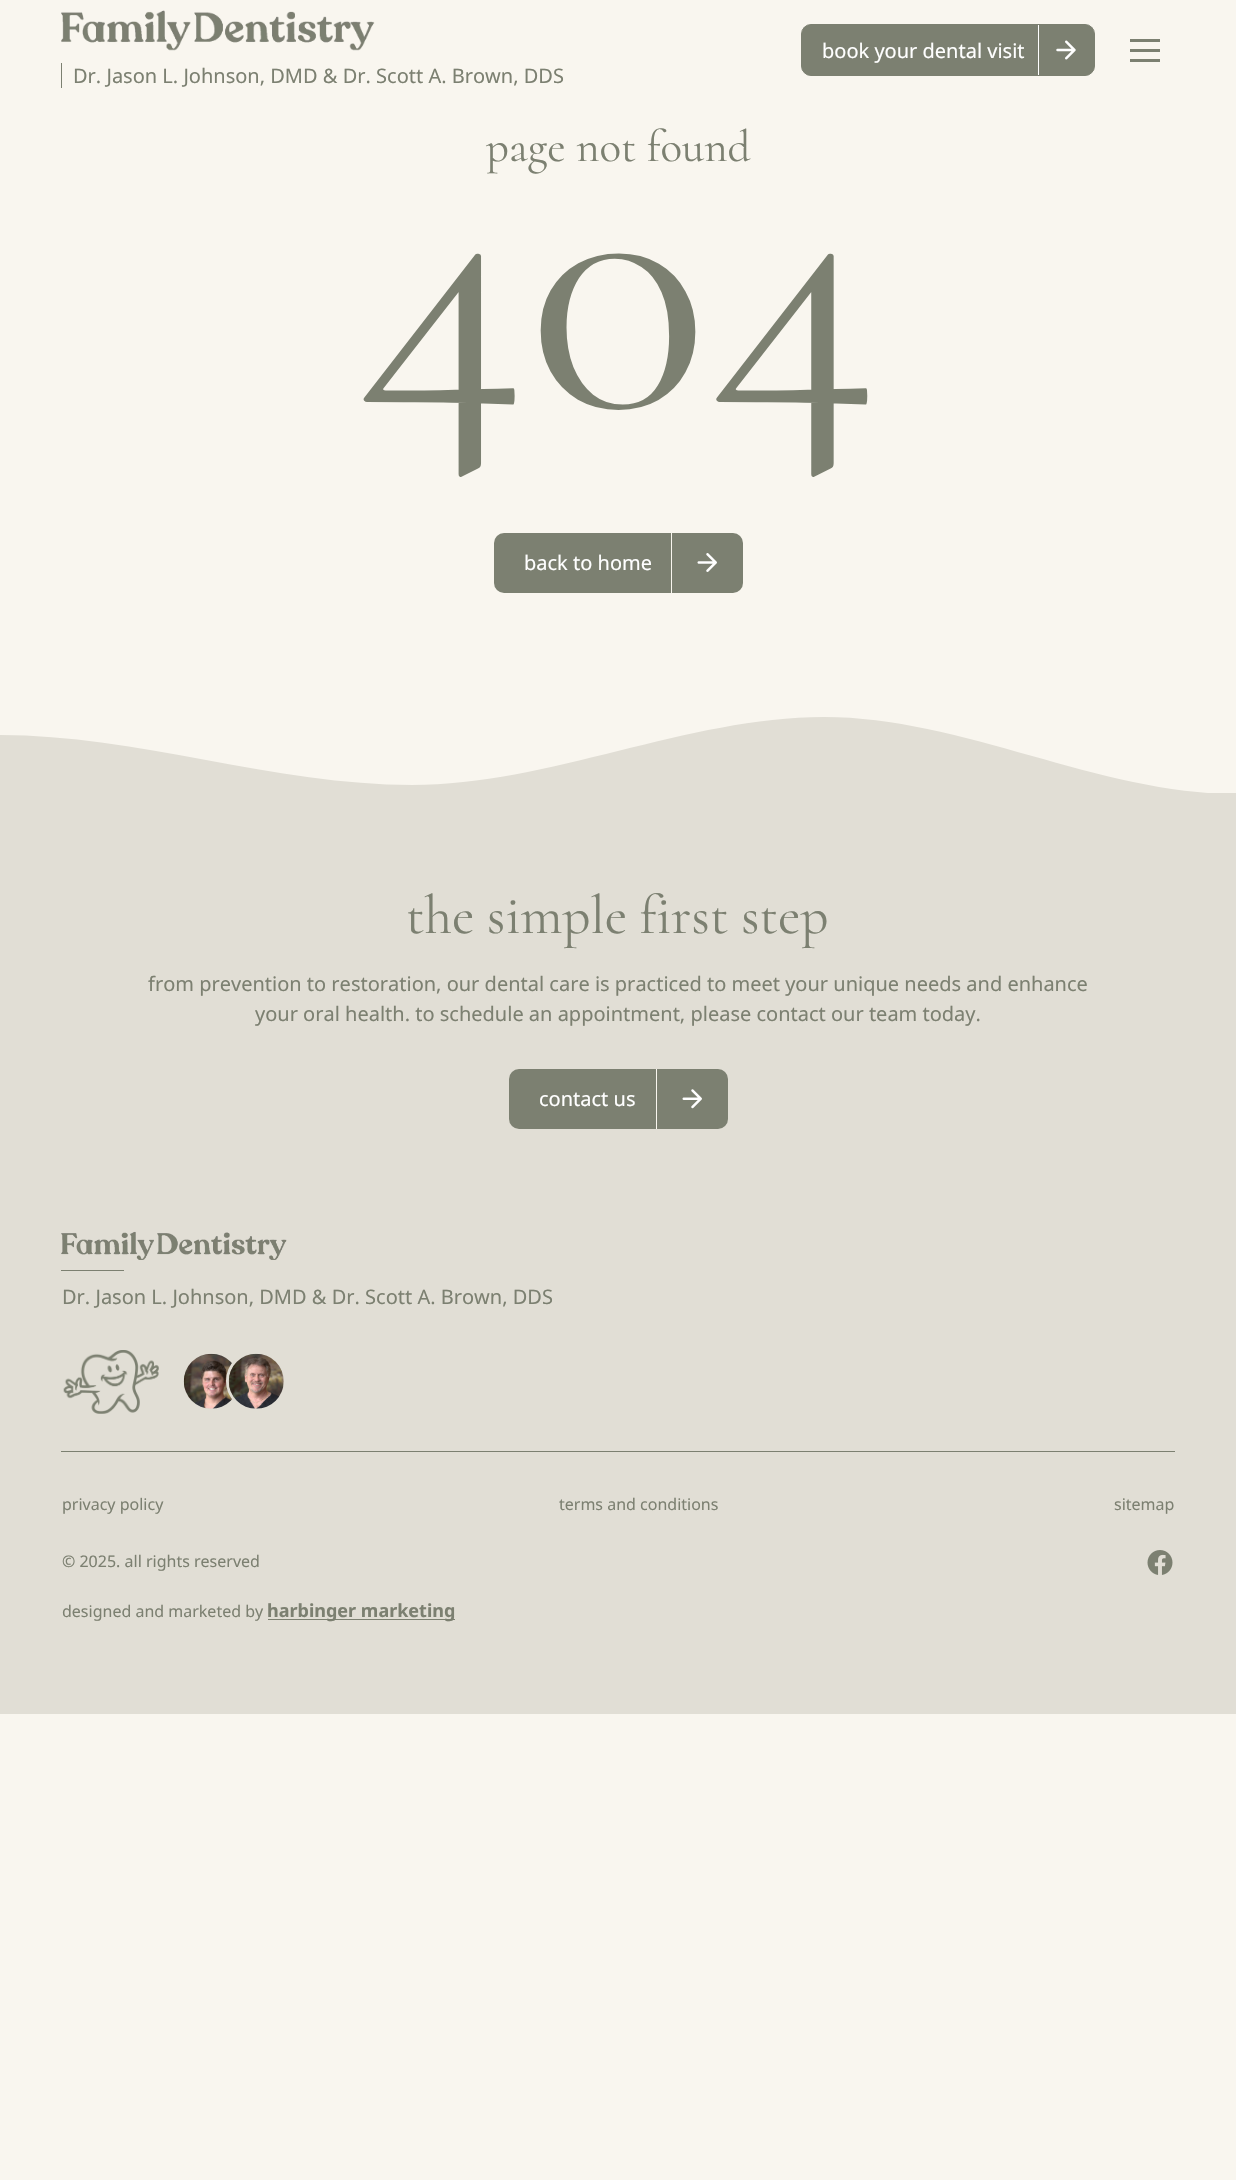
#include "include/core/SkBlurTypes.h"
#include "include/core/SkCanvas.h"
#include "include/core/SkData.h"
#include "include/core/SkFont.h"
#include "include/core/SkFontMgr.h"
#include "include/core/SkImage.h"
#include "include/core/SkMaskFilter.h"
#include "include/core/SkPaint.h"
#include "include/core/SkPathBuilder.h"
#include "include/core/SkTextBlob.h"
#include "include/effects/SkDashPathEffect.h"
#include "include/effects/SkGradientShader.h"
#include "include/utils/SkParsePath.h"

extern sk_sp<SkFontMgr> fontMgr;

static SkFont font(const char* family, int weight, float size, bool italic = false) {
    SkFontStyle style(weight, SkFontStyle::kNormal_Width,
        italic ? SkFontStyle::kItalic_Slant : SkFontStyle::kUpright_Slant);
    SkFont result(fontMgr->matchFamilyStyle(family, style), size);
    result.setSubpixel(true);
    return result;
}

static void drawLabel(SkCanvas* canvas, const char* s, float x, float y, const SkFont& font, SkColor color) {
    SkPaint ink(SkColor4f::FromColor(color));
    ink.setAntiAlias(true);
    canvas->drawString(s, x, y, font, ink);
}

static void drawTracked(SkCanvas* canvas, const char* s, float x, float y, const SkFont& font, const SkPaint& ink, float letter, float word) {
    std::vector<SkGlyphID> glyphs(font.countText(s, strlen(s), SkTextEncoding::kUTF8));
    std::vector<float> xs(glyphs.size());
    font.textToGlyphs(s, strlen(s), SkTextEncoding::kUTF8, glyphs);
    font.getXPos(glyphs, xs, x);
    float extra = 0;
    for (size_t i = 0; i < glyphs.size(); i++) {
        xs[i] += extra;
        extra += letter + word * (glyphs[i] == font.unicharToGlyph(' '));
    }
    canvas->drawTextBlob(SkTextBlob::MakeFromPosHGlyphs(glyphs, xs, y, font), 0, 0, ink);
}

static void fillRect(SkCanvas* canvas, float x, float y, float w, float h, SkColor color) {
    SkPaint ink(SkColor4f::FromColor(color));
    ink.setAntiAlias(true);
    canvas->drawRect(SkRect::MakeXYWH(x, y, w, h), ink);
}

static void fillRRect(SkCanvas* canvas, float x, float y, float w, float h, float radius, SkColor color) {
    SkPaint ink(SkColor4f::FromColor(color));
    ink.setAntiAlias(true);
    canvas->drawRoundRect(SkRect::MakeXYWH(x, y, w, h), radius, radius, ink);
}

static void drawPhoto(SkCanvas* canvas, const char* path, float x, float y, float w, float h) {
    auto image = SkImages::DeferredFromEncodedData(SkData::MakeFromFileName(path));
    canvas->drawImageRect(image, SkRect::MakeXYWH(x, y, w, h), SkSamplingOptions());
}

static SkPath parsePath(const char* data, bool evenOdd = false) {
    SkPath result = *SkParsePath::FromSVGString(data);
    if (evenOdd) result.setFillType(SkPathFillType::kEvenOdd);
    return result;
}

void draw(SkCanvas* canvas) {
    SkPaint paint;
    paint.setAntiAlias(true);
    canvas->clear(0xFFF9F6EF);
    paint.setColor(0xFF7C8071);
    canvas->drawRoundRect(SkRect::MakeXYWH(801.5f, 24.5f, 293, 51), 9.5f, 9.5f, paint);
    paint.setStroke(true);
    paint.setStrokeWidth(1);
    canvas->drawRoundRect(SkRect::MakeXYWH(801.5f, 24.5f, 293, 51), 9.5f, 9.5f, paint);
    SkFont font1 = font("Noto Sans", 400, 20);
    drawLabel(canvas, "book your dental visit", 822, 58, font1, 0xFFFFFFFF);
    fillRect(canvas, 1038, 25, 1, 50, 0xFFFFFFFF);
    drawPhoto(canvas, "assets/img1.png", 1056, 40, 20, 20);
    fillRect(canvas, 1130, 39, 30, 3, 0xFF7C8071);
    fillRect(canvas, 1130, 49, 30, 3, 0xFF7C8071);
    fillRect(canvas, 1130, 59, 30, 3, 0xFF7C8071);
    drawPhoto(canvas, "assets/img2.png", 61, 10, 314, 41);
    fillRect(canvas, 61, 63, 1, 25, 0xFF7C8071);
    drawLabel(canvas, "Dr. Jason L. Johnson, DMD & Dr. Scott A. Brown, DDS", 73, 83, font1, 0xFF7C8071);
    SkFont font2 = font("Cormorant", 400, 45);
    drawLabel(canvas, "page not found", 486, 161, font2, 0xFF7C8071);
    SkFont font3 = font("Cormorant", 400, 380);
    drawLabel(canvas, "404", 356, 405, font3, 0xFF7C8071);
    fillRRect(canvas, 494, 533, 249, 60, 10, 0xFF7C8071);
    drawLabel(canvas, "back to home", 524, 570, font1, 0xFFFFFFFF);
    fillRect(canvas, 671, 533, 1, 60, 0xFFF9F6EF);
    drawPhoto(canvas, "assets/img3.png", 697, 553, 20, 19);
    fillRect(canvas, 0, 793, 1236, 921, 0xFFE1DED5);
    canvas->save();
    canvas->clipRect(SkRect::MakeXYWH(0, 714, 1236, 80));
    paint.setStroke(false);
    paint.setColor(0xFFE1DED5);
    canvas->drawPath(parsePath("M1236 801V794C1099 794 962 717 824 717C687 717 549 785 412 785C275 785 137 735 0 735V801Z"), paint);
    canvas->restore();
    SkFont font4 = font("Cormorant", 400, 55);
    paint.setColor(0xFF7C8071);
    drawTracked(canvas, "the simple first step", 406, 933, font4, paint, 0, -0.5f);
    drawLabel(canvas, "from prevention to restoration, our dental care is practiced to meet your unique needs and enhance", 148, 991, font1, 0xFF7C8071);
    drawLabel(canvas, "your oral health. to schedule an appointment, please contact our team today.", 255, 1021, font1, 0xFF7C8071);
    fillRRect(canvas, 509, 1069, 219, 60, 10, 0xFF7C8071);
    drawLabel(canvas, "contact us", 539, 1106, font1, 0xFFFFFFFF);
    fillRect(canvas, 656, 1069, 1, 60, 0xFFF9F6EF);
    drawPhoto(canvas, "assets/img4.png", 682, 1089, 20, 20);
    drawPhoto(canvas, "assets/img5.png", 61, 1231, 226, 29);
    fillRect(canvas, 61, 1270, 63, 1, 0xFF7C8071);
    drawLabel(canvas, "Dr. Jason L. Johnson, DMD & Dr. Scott A. Brown, DDS", 62, 1304, font1, 0xFF7C8071);
    drawPhoto(canvas, "assets/img6.png", 63, 1350, 96, 64);
    drawPhoto(canvas, "assets/img7.png", 183, 1353, 51, 56);
    paint.setStroke(true);
    paint.setStrokeWidth(3);
    paint.setColor(0xFFE1DED5);
    canvas->drawCircle(256, 1381, 28.5f, paint);
    drawPhoto(canvas, "assets/img8.png", 228, 1353, 56, 56);
    fillRect(canvas, 61, 1451, 1114, 1, 0xFF7C8071);
    SkFont font5 = font("Noto Sans", 400, 16);
    drawLabel(canvas, "privacy policy", 62, 1510, font5, 0xFF7C8071);
    drawLabel(canvas, "terms and conditions", 559, 1510, font5, 0xFF7C8071);
    drawLabel(canvas, "sitemap", 1114, 1510, font5, 0xFF7C8071);
    drawLabel(canvas, "© 2025. all rights reserved", 62, 1567, font5, 0xFF7C8071);
    drawPhoto(canvas, "assets/img9.png", 1147, 1550, 26, 25);
    drawLabel(canvas, "designed and marketed by", 62, 1617, font5, 0xFF7C8071);
    fillRect(canvas, 268, 1619, 187, 1, 0xFF7C8071);
    SkFont font6 = font("Noto Sans", 700, 18);
    drawLabel(canvas, "harbinger marketing", 267, 1617, font6, 0xFF7C8071);
}
